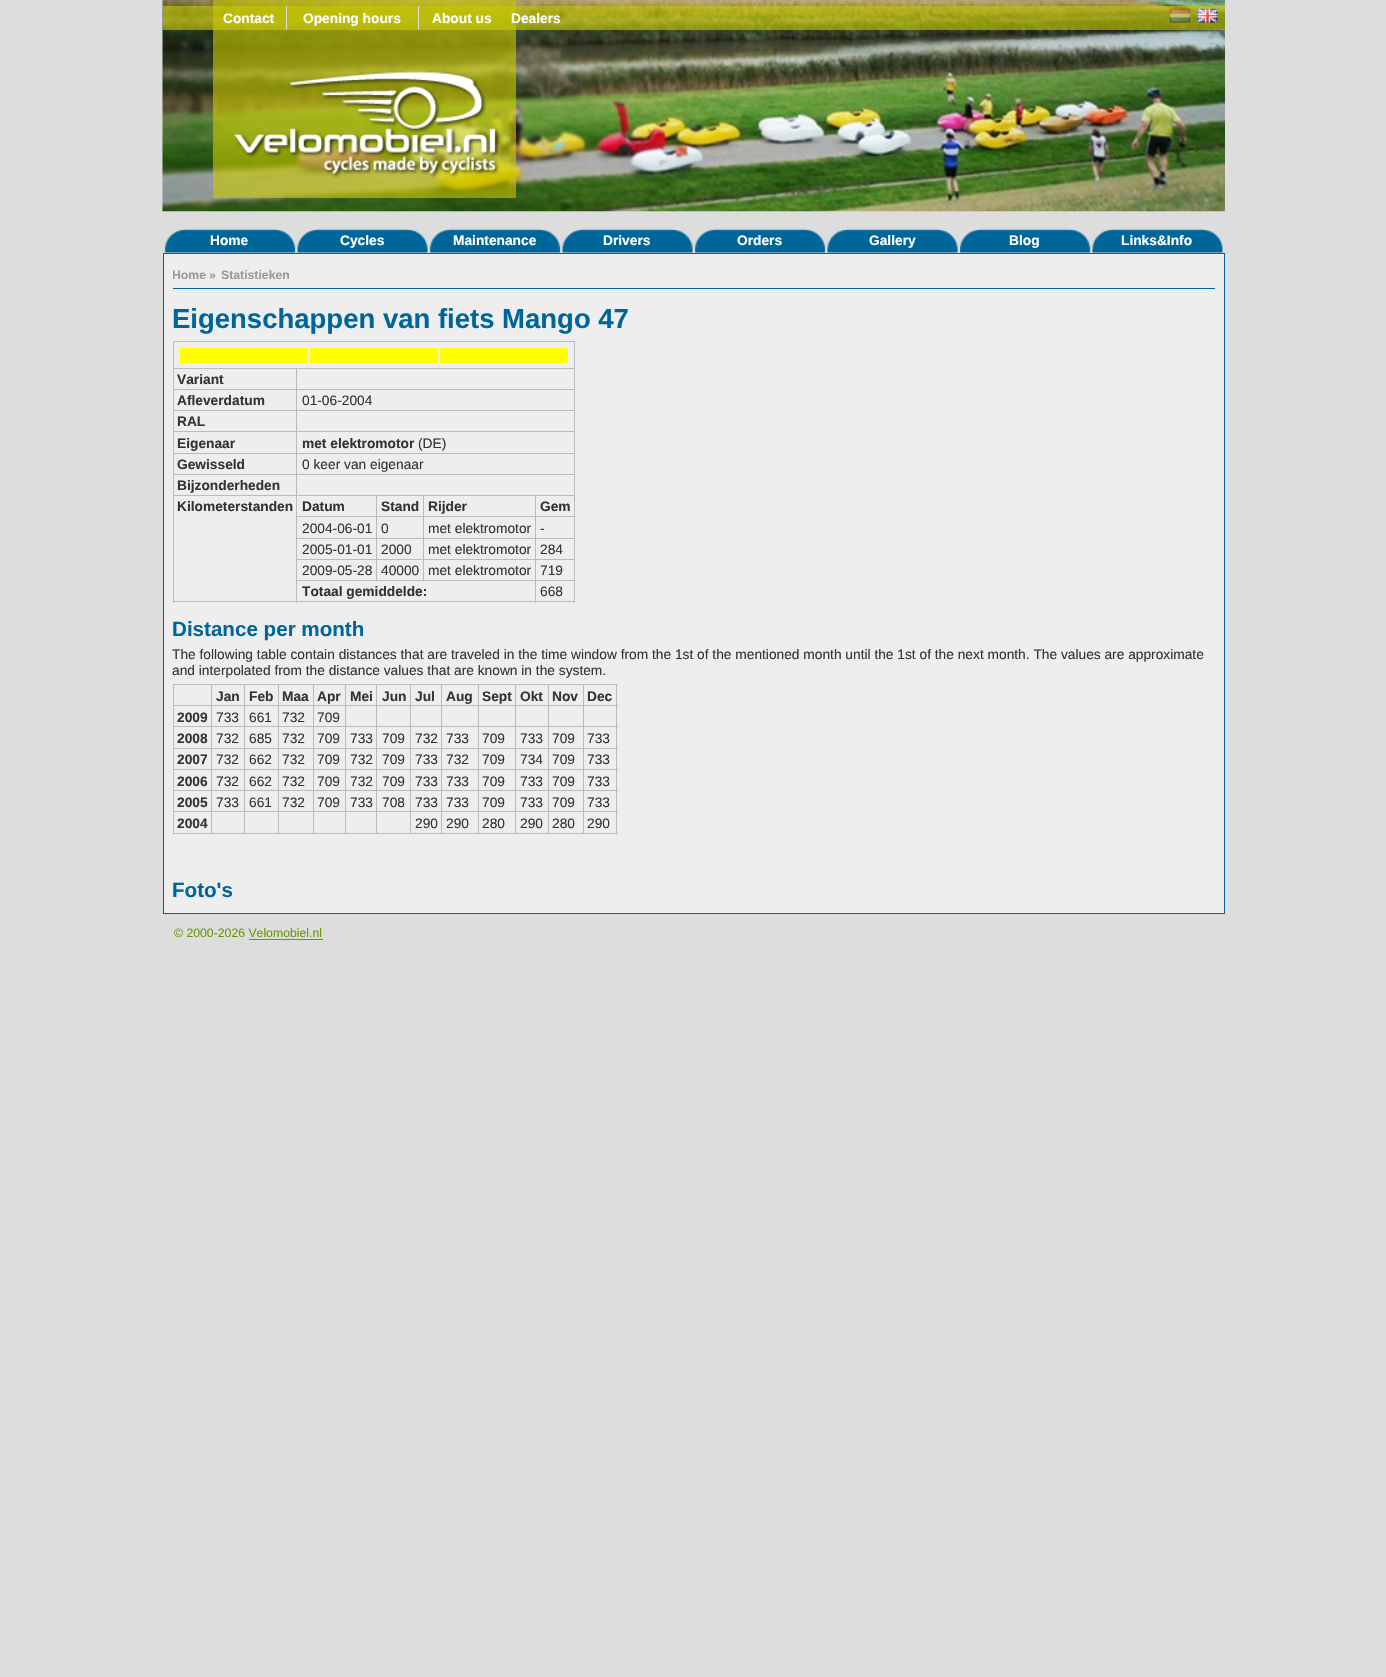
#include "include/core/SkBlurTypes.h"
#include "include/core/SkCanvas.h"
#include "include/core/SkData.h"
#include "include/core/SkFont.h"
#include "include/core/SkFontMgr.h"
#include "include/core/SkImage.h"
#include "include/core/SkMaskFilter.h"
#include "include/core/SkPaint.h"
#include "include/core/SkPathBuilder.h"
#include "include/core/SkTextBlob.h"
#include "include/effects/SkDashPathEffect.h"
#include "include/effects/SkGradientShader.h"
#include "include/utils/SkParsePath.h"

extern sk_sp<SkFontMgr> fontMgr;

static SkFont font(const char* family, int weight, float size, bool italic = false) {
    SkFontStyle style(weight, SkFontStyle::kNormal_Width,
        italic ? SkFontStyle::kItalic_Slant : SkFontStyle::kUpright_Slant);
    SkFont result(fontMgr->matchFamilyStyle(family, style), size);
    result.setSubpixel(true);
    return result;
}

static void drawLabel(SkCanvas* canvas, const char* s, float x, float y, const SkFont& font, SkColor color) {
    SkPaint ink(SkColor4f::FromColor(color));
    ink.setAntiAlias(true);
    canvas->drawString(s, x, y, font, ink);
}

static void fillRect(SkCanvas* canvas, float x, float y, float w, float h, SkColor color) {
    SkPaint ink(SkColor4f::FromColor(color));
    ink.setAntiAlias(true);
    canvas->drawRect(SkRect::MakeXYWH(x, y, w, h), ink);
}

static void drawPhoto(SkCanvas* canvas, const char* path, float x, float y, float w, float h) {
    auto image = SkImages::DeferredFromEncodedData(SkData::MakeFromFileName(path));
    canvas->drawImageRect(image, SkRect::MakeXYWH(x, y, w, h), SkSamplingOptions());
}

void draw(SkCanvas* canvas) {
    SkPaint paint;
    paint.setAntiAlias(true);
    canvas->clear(0xFFDDDDDD);
    drawPhoto(canvas, "assets/img1.png", 162, 0, 1063, 212);
    fillRect(canvas, 163, 6, 1062, 24, 0x99CCCC00);
    fillRect(canvas, 213, 0, 303, 198, 0x99CCCC00);
    drawPhoto(canvas, "assets/img2.png", 234, 71, 266, 107);
    fillRect(canvas, 286, 6, 1, 24, 0xFFDDDDDD);
    SkFont font1 = font("Liberation Sans", 700, 13.75f);
    drawLabel(canvas, "Contact", 223, 23, font1, 0xFFFFFFFF);
    fillRect(canvas, 418, 6, 1, 24, 0xFFDDDDDD);
    drawLabel(canvas, "Opening hours", 303, 23, font1, 0xFFFFFFFF);
    drawLabel(canvas, "About us", 432, 23, font1, 0xFFFFFFFF);
    drawLabel(canvas, "Dealers", 511, 23, font1, 0xFFFFFFFF);
    drawPhoto(canvas, "assets/img3.png", 1170, 8, 20, 15);
    drawPhoto(canvas, "assets/img4.png", 1197, 8, 21, 15);
    drawPhoto(canvas, "assets/img5.png", 164, 228, 132, 25);
    drawLabel(canvas, "Home", 210, 245, font1, 0xFFFFFFFF);
    drawPhoto(canvas, "assets/img6.png", 297, 228, 131, 25);
    drawLabel(canvas, "Cycles", 340, 245, font1, 0xFFFFFFFF);
    drawPhoto(canvas, "assets/img5.png", 429, 228, 132, 25);
    drawLabel(canvas, "Maintenance", 453, 245, font1, 0xFFFFFFFF);
    drawPhoto(canvas, "assets/img7.png", 562, 228, 131, 25);
    drawLabel(canvas, "Drivers", 603, 245, font1, 0xFFFFFFFF);
    drawPhoto(canvas, "assets/img8.png", 694, 228, 132, 25);
    drawLabel(canvas, "Orders", 737, 245, font1, 0xFFFFFFFF);
    drawPhoto(canvas, "assets/img7.png", 827, 228, 131, 25);
    drawLabel(canvas, "Gallery", 869, 245, font1, 0xFFFFFFFF);
    drawPhoto(canvas, "assets/img8.png", 959, 228, 132, 25);
    drawLabel(canvas, "Blog", 1009, 245, font1, 0xFFFFFFFF);
    drawPhoto(canvas, "assets/img6.png", 1092, 228, 131, 25);
    drawLabel(canvas, "Links&Info", 1121, 245, font1, 0xFFFFFFFF);
    paint.setColor(0xFFEEEEEE);
    canvas->drawRect(SkRect::MakeXYWH(163.5f, 253.5f, 1061, 660), paint);
    paint.setStroke(true);
    paint.setStrokeWidth(1);
    paint.setColor(0xFF006699);
    canvas->drawRect(SkRect::MakeXYWH(163.5f, 253.5f, 1061, 660), paint);
    fillRect(canvas, 173, 288, 1042, 1, 0xFF006699);
    canvas->save();
    canvas->clipRect(SkRect::MakeXYWH(173, 263, 1042, 25));
    SkFont font2 = font("Liberation Sans", 700, 12.25f);
    drawLabel(canvas, "Home", 172, 279, font2, 0xFF999999);
    canvas->restore();
    drawLabel(canvas, "»", 209, 279, font2, 0xFF999999);
    drawLabel(canvas, "Statistieken", 221, 279, font2, 0xFF999999);
    SkFont font3 = font("Liberation Sans", 700, 27.5f);
    drawLabel(canvas, "Eigenschappen van fiets Mango 47", 172, 328, font3, 0xFF006699);
    fillRect(canvas, 173, 341, 402, 1, 0xFFBBBBBB);
    fillRect(canvas, 574, 341, 1, 262, 0xFFBBBBBB);
    fillRect(canvas, 173, 601, 402, 1, 0xFFBBBBBB);
    fillRect(canvas, 173, 341, 1, 262, 0xFFBBBBBB);
    fillRect(canvas, 180, 348, 128, 15, 0xFFFFFF00);
    fillRect(canvas, 310, 348, 128, 15, 0xFFFFFF00);
    fillRect(canvas, 440, 348, 128, 15, 0xFFFFFF00);
    fillRect(canvas, 296, 368, 279, 1, 0xFFBBBBBB);
    fillRect(canvas, 296, 389, 279, 1, 0xFFBBBBBB);
    fillRect(canvas, 296, 410, 279, 1, 0xFFBBBBBB);
    fillRect(canvas, 296, 431, 279, 1, 0xFFBBBBBB);
    fillRect(canvas, 296, 453, 279, 1, 0xFFBBBBBB);
    fillRect(canvas, 296, 474, 279, 1, 0xFFBBBBBB);
    fillRect(canvas, 535, 495, 40, 1, 0xFFBBBBBB);
    fillRect(canvas, 535, 516, 40, 1, 0xFFBBBBBB);
    fillRect(canvas, 535, 538, 40, 1, 0xFFBBBBBB);
    fillRect(canvas, 535, 559, 40, 1, 0xFFBBBBBB);
    fillRect(canvas, 535, 580, 40, 1, 0xFFBBBBBB);
    fillRect(canvas, 535, 580, 1, 23, 0xFFBBBBBB);
    fillRect(canvas, 296, 580, 240, 1, 0xFFBBBBBB);
    fillRect(canvas, 535, 559, 1, 22, 0xFFBBBBBB);
    fillRect(canvas, 423, 559, 113, 1, 0xFFBBBBBB);
    fillRect(canvas, 535, 538, 1, 22, 0xFFBBBBBB);
    fillRect(canvas, 423, 538, 113, 1, 0xFFBBBBBB);
    fillRect(canvas, 535, 516, 1, 23, 0xFFBBBBBB);
    fillRect(canvas, 423, 516, 113, 1, 0xFFBBBBBB);
    fillRect(canvas, 535, 495, 1, 23, 0xFFBBBBBB);
    fillRect(canvas, 423, 495, 113, 1, 0xFFBBBBBB);
    fillRect(canvas, 423, 559, 1, 22, 0xFFBBBBBB);
    fillRect(canvas, 376, 559, 48, 1, 0xFFBBBBBB);
    fillRect(canvas, 423, 538, 1, 22, 0xFFBBBBBB);
    fillRect(canvas, 376, 538, 48, 1, 0xFFBBBBBB);
    fillRect(canvas, 423, 516, 1, 23, 0xFFBBBBBB);
    fillRect(canvas, 376, 516, 48, 1, 0xFFBBBBBB);
    fillRect(canvas, 423, 495, 1, 23, 0xFFBBBBBB);
    fillRect(canvas, 376, 495, 48, 1, 0xFFBBBBBB);
    fillRect(canvas, 376, 559, 1, 22, 0xFFBBBBBB);
    fillRect(canvas, 296, 559, 82, 1, 0xFFBBBBBB);
    fillRect(canvas, 376, 538, 1, 22, 0xFFBBBBBB);
    fillRect(canvas, 296, 538, 82, 1, 0xFFBBBBBB);
    fillRect(canvas, 376, 516, 1, 23, 0xFFBBBBBB);
    fillRect(canvas, 296, 516, 82, 1, 0xFFBBBBBB);
    fillRect(canvas, 376, 495, 1, 23, 0xFFBBBBBB);
    fillRect(canvas, 296, 495, 82, 1, 0xFFBBBBBB);
    fillRect(canvas, 296, 580, 1, 23, 0xFFBBBBBB);
    fillRect(canvas, 296, 559, 1, 22, 0xFFBBBBBB);
    fillRect(canvas, 296, 538, 1, 22, 0xFFBBBBBB);
    fillRect(canvas, 296, 516, 1, 23, 0xFFBBBBBB);
    fillRect(canvas, 296, 495, 1, 23, 0xFFBBBBBB);
    fillRect(canvas, 173, 495, 125, 1, 0xFFBBBBBB);
    fillRect(canvas, 296, 474, 1, 22, 0xFFBBBBBB);
    fillRect(canvas, 173, 474, 125, 1, 0xFFBBBBBB);
    fillRect(canvas, 296, 453, 1, 22, 0xFFBBBBBB);
    fillRect(canvas, 173, 453, 125, 1, 0xFFBBBBBB);
    fillRect(canvas, 296, 431, 1, 23, 0xFFBBBBBB);
    fillRect(canvas, 173, 431, 125, 1, 0xFFBBBBBB);
    fillRect(canvas, 296, 410, 1, 23, 0xFFBBBBBB);
    fillRect(canvas, 173, 410, 125, 1, 0xFFBBBBBB);
    fillRect(canvas, 296, 389, 1, 22, 0xFFBBBBBB);
    fillRect(canvas, 173, 389, 125, 1, 0xFFBBBBBB);
    fillRect(canvas, 296, 368, 1, 22, 0xFFBBBBBB);
    fillRect(canvas, 173, 368, 125, 1, 0xFFBBBBBB);
    drawLabel(canvas, "Variant", 177, 384, font1, 0xFF333333);
    drawLabel(canvas, "Afleverdatum", 177, 405, font1, 0xFF333333);
    SkFont font4 = font("Liberation Sans", 400, 13.75f);
    drawLabel(canvas, "01-06-2004", 302, 405, font4, 0xFF333333);
    drawLabel(canvas, "RAL", 177, 426, font1, 0xFF333333);
    drawLabel(canvas, "Eigenaar", 177, 448, font1, 0xFF333333);
    drawLabel(canvas, "met elektromotor", 302, 448, font1, 0xFF333333);
    drawLabel(canvas, "(DE)", 418, 448, font4, 0xFF333333);
    drawLabel(canvas, "Gewisseld", 177, 469, font1, 0xFF333333);
    drawLabel(canvas, "0 keer van eigenaar", 302, 469, font4, 0xFF333333);
    drawLabel(canvas, "Bijzonderheden", 177, 490, font1, 0xFF333333);
    drawLabel(canvas, "Kilometerstanden", 177, 511, font1, 0xFF333333);
    drawLabel(canvas, "Datum", 302, 511, font1, 0xFF333333);
    drawLabel(canvas, "Stand", 381, 511, font1, 0xFF333333);
    drawLabel(canvas, "Rijder", 428, 511, font1, 0xFF333333);
    drawLabel(canvas, "Gem", 540, 511, font1, 0xFF333333);
    drawLabel(canvas, "2004-06-01", 302, 533, font4, 0xFF333333);
    drawLabel(canvas, "0", 381, 533, font4, 0xFF333333);
    drawLabel(canvas, "met elektromotor", 428, 533, font4, 0xFF333333);
    drawLabel(canvas, "-", 540, 533, font4, 0xFF333333);
    drawLabel(canvas, "2005-01-01", 302, 554, font4, 0xFF333333);
    drawLabel(canvas, "2000", 381, 554, font4, 0xFF333333);
    drawLabel(canvas, "met elektromotor", 428, 554, font4, 0xFF333333);
    drawLabel(canvas, "284", 540, 554, font4, 0xFF333333);
    drawLabel(canvas, "2009-05-28", 302, 575, font4, 0xFF333333);
    drawLabel(canvas, "40000", 381, 575, font4, 0xFF333333);
    drawLabel(canvas, "met elektromotor", 428, 575, font4, 0xFF333333);
    drawLabel(canvas, "719", 540, 575, font4, 0xFF333333);
    drawLabel(canvas, "Totaal gemiddelde:", 302, 596, font1, 0xFF333333);
    drawLabel(canvas, "668", 540, 596, font4, 0xFF333333);
    SkFont font5 = font("Liberation Sans", 700, 20.6f);
    drawLabel(canvas, "Distance per month", 172, 636, font5, 0xFF006699);
    drawLabel(canvas, "The following table contain distances that are traveled in the time window from the 1st of the mentioned month until the 1st of the next month. The values are approximate", 172, 659, font4, 0xFF333333);
    drawLabel(canvas, "and interpolated from the distance values that are known in the system.", 172, 675, font4, 0xFF333333);
    fillRect(canvas, 173, 684, 445, 1, 0xFFBBBBBB);
    fillRect(canvas, 616, 684, 1, 150, 0xFFBBBBBB);
    fillRect(canvas, 173, 833, 445, 1, 0xFFBBBBBB);
    fillRect(canvas, 173, 684, 1, 150, 0xFFBBBBBB);
    fillRect(canvas, 583, 705, 35, 1, 0xFFBBBBBB);
    fillRect(canvas, 583, 726, 35, 1, 0xFFBBBBBB);
    fillRect(canvas, 583, 748, 35, 1, 0xFFBBBBBB);
    fillRect(canvas, 583, 769, 35, 1, 0xFFBBBBBB);
    fillRect(canvas, 583, 790, 35, 1, 0xFFBBBBBB);
    fillRect(canvas, 583, 811, 35, 1, 0xFFBBBBBB);
    fillRect(canvas, 583, 811, 1, 23, 0xFFBBBBBB);
    fillRect(canvas, 548, 811, 36, 1, 0xFFBBBBBB);
    fillRect(canvas, 583, 790, 1, 23, 0xFFBBBBBB);
    fillRect(canvas, 548, 790, 36, 1, 0xFFBBBBBB);
    fillRect(canvas, 583, 769, 1, 22, 0xFFBBBBBB);
    fillRect(canvas, 548, 769, 36, 1, 0xFFBBBBBB);
    fillRect(canvas, 583, 748, 1, 22, 0xFFBBBBBB);
    fillRect(canvas, 548, 748, 36, 1, 0xFFBBBBBB);
    fillRect(canvas, 583, 726, 1, 23, 0xFFBBBBBB);
    fillRect(canvas, 548, 726, 36, 1, 0xFFBBBBBB);
    fillRect(canvas, 583, 705, 1, 23, 0xFFBBBBBB);
    fillRect(canvas, 548, 705, 36, 1, 0xFFBBBBBB);
    fillRect(canvas, 548, 811, 1, 23, 0xFFBBBBBB);
    fillRect(canvas, 515, 811, 34, 1, 0xFFBBBBBB);
    fillRect(canvas, 548, 790, 1, 23, 0xFFBBBBBB);
    fillRect(canvas, 515, 790, 34, 1, 0xFFBBBBBB);
    fillRect(canvas, 548, 769, 1, 22, 0xFFBBBBBB);
    fillRect(canvas, 515, 769, 34, 1, 0xFFBBBBBB);
    fillRect(canvas, 548, 748, 1, 22, 0xFFBBBBBB);
    fillRect(canvas, 515, 748, 34, 1, 0xFFBBBBBB);
    fillRect(canvas, 548, 726, 1, 23, 0xFFBBBBBB);
    fillRect(canvas, 515, 726, 34, 1, 0xFFBBBBBB);
    fillRect(canvas, 548, 705, 1, 23, 0xFFBBBBBB);
    fillRect(canvas, 515, 705, 34, 1, 0xFFBBBBBB);
    fillRect(canvas, 515, 811, 1, 23, 0xFFBBBBBB);
    fillRect(canvas, 478, 811, 38, 1, 0xFFBBBBBB);
    fillRect(canvas, 515, 790, 1, 23, 0xFFBBBBBB);
    fillRect(canvas, 478, 790, 38, 1, 0xFFBBBBBB);
    fillRect(canvas, 515, 769, 1, 22, 0xFFBBBBBB);
    fillRect(canvas, 478, 769, 38, 1, 0xFFBBBBBB);
    fillRect(canvas, 515, 748, 1, 22, 0xFFBBBBBB);
    fillRect(canvas, 478, 748, 38, 1, 0xFFBBBBBB);
    fillRect(canvas, 515, 726, 1, 23, 0xFFBBBBBB);
    fillRect(canvas, 478, 726, 38, 1, 0xFFBBBBBB);
    fillRect(canvas, 515, 705, 1, 23, 0xFFBBBBBB);
    fillRect(canvas, 478, 705, 38, 1, 0xFFBBBBBB);
    fillRect(canvas, 478, 811, 1, 23, 0xFFBBBBBB);
    fillRect(canvas, 441, 811, 38, 1, 0xFFBBBBBB);
    fillRect(canvas, 478, 790, 1, 23, 0xFFBBBBBB);
    fillRect(canvas, 441, 790, 38, 1, 0xFFBBBBBB);
    fillRect(canvas, 478, 769, 1, 22, 0xFFBBBBBB);
    fillRect(canvas, 441, 769, 38, 1, 0xFFBBBBBB);
    fillRect(canvas, 478, 748, 1, 22, 0xFFBBBBBB);
    fillRect(canvas, 441, 748, 38, 1, 0xFFBBBBBB);
    fillRect(canvas, 478, 726, 1, 23, 0xFFBBBBBB);
    fillRect(canvas, 441, 726, 38, 1, 0xFFBBBBBB);
    fillRect(canvas, 478, 705, 1, 23, 0xFFBBBBBB);
    fillRect(canvas, 441, 705, 38, 1, 0xFFBBBBBB);
    fillRect(canvas, 441, 811, 1, 23, 0xFFBBBBBB);
    fillRect(canvas, 410, 811, 33, 1, 0xFFBBBBBB);
    fillRect(canvas, 441, 790, 1, 23, 0xFFBBBBBB);
    fillRect(canvas, 410, 790, 33, 1, 0xFFBBBBBB);
    fillRect(canvas, 441, 769, 1, 22, 0xFFBBBBBB);
    fillRect(canvas, 410, 769, 33, 1, 0xFFBBBBBB);
    fillRect(canvas, 441, 748, 1, 22, 0xFFBBBBBB);
    fillRect(canvas, 410, 748, 33, 1, 0xFFBBBBBB);
    fillRect(canvas, 441, 726, 1, 23, 0xFFBBBBBB);
    fillRect(canvas, 410, 726, 33, 1, 0xFFBBBBBB);
    fillRect(canvas, 441, 705, 1, 23, 0xFFBBBBBB);
    fillRect(canvas, 410, 705, 33, 1, 0xFFBBBBBB);
    fillRect(canvas, 410, 811, 1, 23, 0xFFBBBBBB);
    fillRect(canvas, 376, 811, 35, 1, 0xFFBBBBBB);
    fillRect(canvas, 410, 790, 1, 23, 0xFFBBBBBB);
    fillRect(canvas, 376, 790, 35, 1, 0xFFBBBBBB);
    fillRect(canvas, 410, 769, 1, 22, 0xFFBBBBBB);
    fillRect(canvas, 376, 769, 35, 1, 0xFFBBBBBB);
    fillRect(canvas, 410, 748, 1, 22, 0xFFBBBBBB);
    fillRect(canvas, 376, 748, 35, 1, 0xFFBBBBBB);
    fillRect(canvas, 410, 726, 1, 23, 0xFFBBBBBB);
    fillRect(canvas, 376, 726, 35, 1, 0xFFBBBBBB);
    fillRect(canvas, 410, 705, 1, 23, 0xFFBBBBBB);
    fillRect(canvas, 376, 705, 35, 1, 0xFFBBBBBB);
    fillRect(canvas, 376, 811, 1, 23, 0xFFBBBBBB);
    fillRect(canvas, 345, 811, 33, 1, 0xFFBBBBBB);
    fillRect(canvas, 376, 790, 1, 23, 0xFFBBBBBB);
    fillRect(canvas, 345, 790, 33, 1, 0xFFBBBBBB);
    fillRect(canvas, 376, 769, 1, 22, 0xFFBBBBBB);
    fillRect(canvas, 345, 769, 33, 1, 0xFFBBBBBB);
    fillRect(canvas, 376, 748, 1, 22, 0xFFBBBBBB);
    fillRect(canvas, 345, 748, 33, 1, 0xFFBBBBBB);
    fillRect(canvas, 376, 726, 1, 23, 0xFFBBBBBB);
    fillRect(canvas, 345, 726, 33, 1, 0xFFBBBBBB);
    fillRect(canvas, 376, 705, 1, 23, 0xFFBBBBBB);
    fillRect(canvas, 345, 705, 33, 1, 0xFFBBBBBB);
    fillRect(canvas, 345, 811, 1, 23, 0xFFBBBBBB);
    fillRect(canvas, 313, 811, 33, 1, 0xFFBBBBBB);
    fillRect(canvas, 345, 790, 1, 23, 0xFFBBBBBB);
    fillRect(canvas, 313, 790, 33, 1, 0xFFBBBBBB);
    fillRect(canvas, 345, 769, 1, 22, 0xFFBBBBBB);
    fillRect(canvas, 313, 769, 33, 1, 0xFFBBBBBB);
    fillRect(canvas, 345, 748, 1, 22, 0xFFBBBBBB);
    fillRect(canvas, 313, 748, 33, 1, 0xFFBBBBBB);
    fillRect(canvas, 345, 726, 1, 23, 0xFFBBBBBB);
    fillRect(canvas, 313, 726, 33, 1, 0xFFBBBBBB);
    fillRect(canvas, 345, 705, 1, 23, 0xFFBBBBBB);
    fillRect(canvas, 313, 705, 33, 1, 0xFFBBBBBB);
    fillRect(canvas, 313, 811, 1, 23, 0xFFBBBBBB);
    fillRect(canvas, 278, 811, 36, 1, 0xFFBBBBBB);
    fillRect(canvas, 313, 790, 1, 23, 0xFFBBBBBB);
    fillRect(canvas, 278, 790, 36, 1, 0xFFBBBBBB);
    fillRect(canvas, 313, 769, 1, 22, 0xFFBBBBBB);
    fillRect(canvas, 278, 769, 36, 1, 0xFFBBBBBB);
    fillRect(canvas, 313, 748, 1, 22, 0xFFBBBBBB);
    fillRect(canvas, 278, 748, 36, 1, 0xFFBBBBBB);
    fillRect(canvas, 313, 726, 1, 23, 0xFFBBBBBB);
    fillRect(canvas, 278, 726, 36, 1, 0xFFBBBBBB);
    fillRect(canvas, 313, 705, 1, 23, 0xFFBBBBBB);
    fillRect(canvas, 278, 705, 36, 1, 0xFFBBBBBB);
    fillRect(canvas, 278, 811, 1, 23, 0xFFBBBBBB);
    fillRect(canvas, 244, 811, 35, 1, 0xFFBBBBBB);
    fillRect(canvas, 278, 790, 1, 23, 0xFFBBBBBB);
    fillRect(canvas, 244, 790, 35, 1, 0xFFBBBBBB);
    fillRect(canvas, 278, 769, 1, 22, 0xFFBBBBBB);
    fillRect(canvas, 244, 769, 35, 1, 0xFFBBBBBB);
    fillRect(canvas, 278, 748, 1, 22, 0xFFBBBBBB);
    fillRect(canvas, 244, 748, 35, 1, 0xFFBBBBBB);
    fillRect(canvas, 278, 726, 1, 23, 0xFFBBBBBB);
    fillRect(canvas, 244, 726, 35, 1, 0xFFBBBBBB);
    fillRect(canvas, 278, 705, 1, 23, 0xFFBBBBBB);
    fillRect(canvas, 244, 705, 35, 1, 0xFFBBBBBB);
    fillRect(canvas, 244, 811, 1, 23, 0xFFBBBBBB);
    fillRect(canvas, 211, 811, 34, 1, 0xFFBBBBBB);
    fillRect(canvas, 244, 790, 1, 23, 0xFFBBBBBB);
    fillRect(canvas, 211, 790, 34, 1, 0xFFBBBBBB);
    fillRect(canvas, 244, 769, 1, 22, 0xFFBBBBBB);
    fillRect(canvas, 211, 769, 34, 1, 0xFFBBBBBB);
    fillRect(canvas, 244, 748, 1, 22, 0xFFBBBBBB);
    fillRect(canvas, 211, 748, 34, 1, 0xFFBBBBBB);
    fillRect(canvas, 244, 726, 1, 23, 0xFFBBBBBB);
    fillRect(canvas, 211, 726, 34, 1, 0xFFBBBBBB);
    fillRect(canvas, 244, 705, 1, 23, 0xFFBBBBBB);
    fillRect(canvas, 211, 705, 34, 1, 0xFFBBBBBB);
    fillRect(canvas, 211, 811, 1, 23, 0xFFBBBBBB);
    fillRect(canvas, 173, 811, 40, 1, 0xFFBBBBBB);
    fillRect(canvas, 211, 790, 1, 23, 0xFFBBBBBB);
    fillRect(canvas, 173, 790, 40, 1, 0xFFBBBBBB);
    fillRect(canvas, 211, 769, 1, 22, 0xFFBBBBBB);
    fillRect(canvas, 173, 769, 40, 1, 0xFFBBBBBB);
    fillRect(canvas, 211, 748, 1, 22, 0xFFBBBBBB);
    fillRect(canvas, 173, 748, 40, 1, 0xFFBBBBBB);
    fillRect(canvas, 211, 726, 1, 23, 0xFFBBBBBB);
    fillRect(canvas, 173, 726, 40, 1, 0xFFBBBBBB);
    fillRect(canvas, 211, 705, 1, 23, 0xFFBBBBBB);
    fillRect(canvas, 173, 705, 40, 1, 0xFFBBBBBB);
    fillRect(canvas, 211, 684, 1, 22, 0xFFBBBBBB);
    drawLabel(canvas, "Jan", 216, 701, font1, 0xFF333333);
    fillRect(canvas, 244, 684, 1, 22, 0xFFBBBBBB);
    drawLabel(canvas, "Feb", 249, 701, font1, 0xFF333333);
    fillRect(canvas, 278, 684, 1, 22, 0xFFBBBBBB);
    drawLabel(canvas, "Maa", 282, 701, font1, 0xFF333333);
    fillRect(canvas, 313, 684, 1, 22, 0xFFBBBBBB);
    drawLabel(canvas, "Apr", 317, 701, font1, 0xFF333333);
    fillRect(canvas, 345, 684, 1, 22, 0xFFBBBBBB);
    drawLabel(canvas, "Mei", 350, 701, font1, 0xFF333333);
    fillRect(canvas, 376, 684, 1, 22, 0xFFBBBBBB);
    drawLabel(canvas, "Jun", 382, 701, font1, 0xFF333333);
    fillRect(canvas, 410, 684, 1, 22, 0xFFBBBBBB);
    drawLabel(canvas, "Jul", 415, 701, font1, 0xFF333333);
    fillRect(canvas, 441, 684, 1, 22, 0xFFBBBBBB);
    drawLabel(canvas, "Aug", 446, 701, font1, 0xFF333333);
    fillRect(canvas, 478, 684, 1, 22, 0xFFBBBBBB);
    drawLabel(canvas, "Sept", 482, 701, font1, 0xFF333333);
    fillRect(canvas, 515, 684, 1, 22, 0xFFBBBBBB);
    drawLabel(canvas, "Okt", 520, 701, font1, 0xFF333333);
    fillRect(canvas, 548, 684, 1, 22, 0xFFBBBBBB);
    drawLabel(canvas, "Nov", 552, 701, font1, 0xFF333333);
    fillRect(canvas, 583, 684, 1, 22, 0xFFBBBBBB);
    drawLabel(canvas, "Dec", 587, 701, font1, 0xFF333333);
    drawLabel(canvas, "2009", 177, 722, font1, 0xFF333333);
    drawLabel(canvas, "733", 216, 722, font4, 0xFF333333);
    drawLabel(canvas, "661", 249, 722, font4, 0xFF333333);
    drawLabel(canvas, "732", 282, 722, font4, 0xFF333333);
    drawLabel(canvas, "709", 317, 722, font4, 0xFF333333);
    drawLabel(canvas, "2008", 177, 743, font1, 0xFF333333);
    drawLabel(canvas, "732", 216, 743, font4, 0xFF333333);
    drawLabel(canvas, "685", 249, 743, font4, 0xFF333333);
    drawLabel(canvas, "732", 282, 743, font4, 0xFF333333);
    drawLabel(canvas, "709", 317, 743, font4, 0xFF333333);
    drawLabel(canvas, "733", 350, 743, font4, 0xFF333333);
    drawLabel(canvas, "709", 382, 743, font4, 0xFF333333);
    drawLabel(canvas, "732", 415, 743, font4, 0xFF333333);
    drawLabel(canvas, "733", 446, 743, font4, 0xFF333333);
    drawLabel(canvas, "709", 482, 743, font4, 0xFF333333);
    drawLabel(canvas, "733", 520, 743, font4, 0xFF333333);
    drawLabel(canvas, "709", 552, 743, font4, 0xFF333333);
    drawLabel(canvas, "733", 587, 743, font4, 0xFF333333);
    drawLabel(canvas, "2007", 177, 764, font1, 0xFF333333);
    drawLabel(canvas, "732", 216, 764, font4, 0xFF333333);
    drawLabel(canvas, "662", 249, 764, font4, 0xFF333333);
    drawLabel(canvas, "732", 282, 764, font4, 0xFF333333);
    drawLabel(canvas, "709", 317, 764, font4, 0xFF333333);
    drawLabel(canvas, "732", 350, 764, font4, 0xFF333333);
    drawLabel(canvas, "709", 382, 764, font4, 0xFF333333);
    drawLabel(canvas, "733", 415, 764, font4, 0xFF333333);
    drawLabel(canvas, "732", 446, 764, font4, 0xFF333333);
    drawLabel(canvas, "709", 482, 764, font4, 0xFF333333);
    drawLabel(canvas, "734", 520, 764, font4, 0xFF333333);
    drawLabel(canvas, "709", 552, 764, font4, 0xFF333333);
    drawLabel(canvas, "733", 587, 764, font4, 0xFF333333);
    drawLabel(canvas, "2006", 177, 786, font1, 0xFF333333);
    drawLabel(canvas, "732", 216, 786, font4, 0xFF333333);
    drawLabel(canvas, "662", 249, 786, font4, 0xFF333333);
    drawLabel(canvas, "732", 282, 786, font4, 0xFF333333);
    drawLabel(canvas, "709", 317, 786, font4, 0xFF333333);
    drawLabel(canvas, "732", 350, 786, font4, 0xFF333333);
    drawLabel(canvas, "709", 382, 786, font4, 0xFF333333);
    drawLabel(canvas, "733", 415, 786, font4, 0xFF333333);
    drawLabel(canvas, "733", 446, 786, font4, 0xFF333333);
    drawLabel(canvas, "709", 482, 786, font4, 0xFF333333);
    drawLabel(canvas, "733", 520, 786, font4, 0xFF333333);
    drawLabel(canvas, "709", 552, 786, font4, 0xFF333333);
    drawLabel(canvas, "733", 587, 786, font4, 0xFF333333);
    drawLabel(canvas, "2005", 177, 807, font1, 0xFF333333);
    drawLabel(canvas, "733", 216, 807, font4, 0xFF333333);
    drawLabel(canvas, "661", 249, 807, font4, 0xFF333333);
    drawLabel(canvas, "732", 282, 807, font4, 0xFF333333);
    drawLabel(canvas, "709", 317, 807, font4, 0xFF333333);
    drawLabel(canvas, "733", 350, 807, font4, 0xFF333333);
    drawLabel(canvas, "708", 382, 807, font4, 0xFF333333);
    drawLabel(canvas, "733", 415, 807, font4, 0xFF333333);
    drawLabel(canvas, "733", 446, 807, font4, 0xFF333333);
    drawLabel(canvas, "709", 482, 807, font4, 0xFF333333);
    drawLabel(canvas, "733", 520, 807, font4, 0xFF333333);
    drawLabel(canvas, "709", 552, 807, font4, 0xFF333333);
    drawLabel(canvas, "733", 587, 807, font4, 0xFF333333);
    drawLabel(canvas, "2004", 177, 828, font1, 0xFF333333);
    drawLabel(canvas, "290", 415, 828, font4, 0xFF333333);
    drawLabel(canvas, "290", 446, 828, font4, 0xFF333333);
    drawLabel(canvas, "280", 482, 828, font4, 0xFF333333);
    drawLabel(canvas, "290", 520, 828, font4, 0xFF333333);
    drawLabel(canvas, "280", 552, 828, font4, 0xFF333333);
    drawLabel(canvas, "290", 587, 828, font4, 0xFF333333);
    drawLabel(canvas, "Foto's", 172, 897, font5, 0xFF006699);
    SkFont font6 = font("Liberation Sans", 400, 12.25f);
    drawLabel(canvas, "© 2000-2026 Velomobiel.nl", 174, 937, font6, 0xFF669900);
    fillRect(canvas, 249, 939, 74, 1, 0xFF669900);
}
